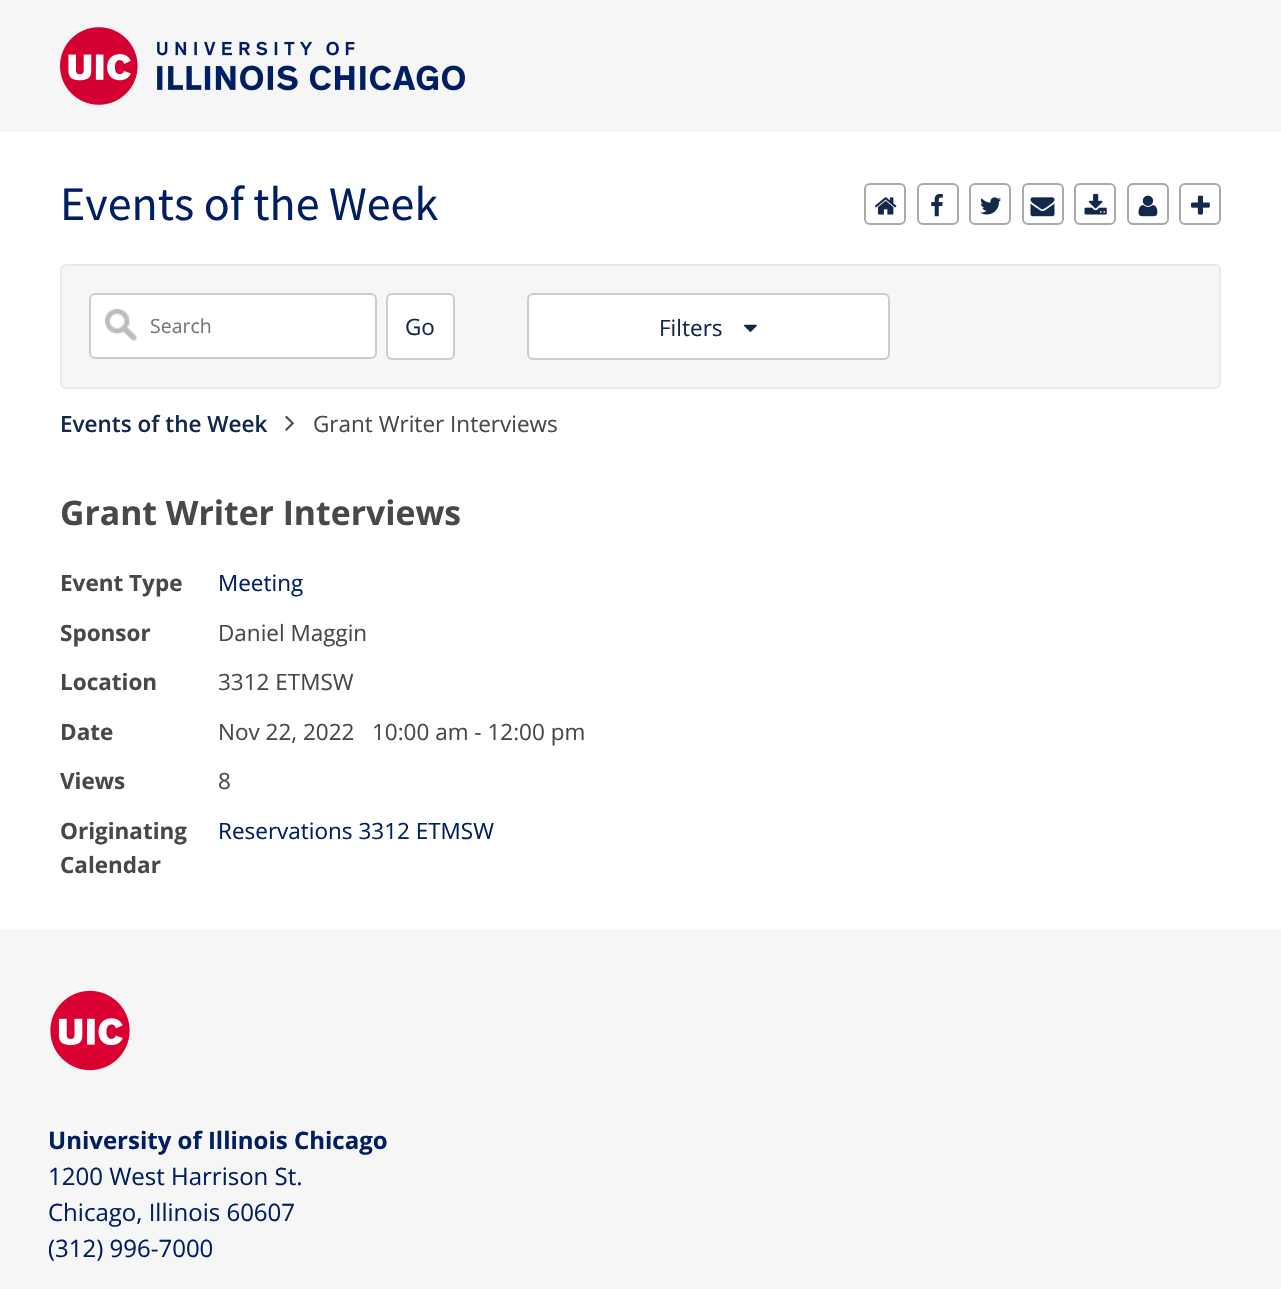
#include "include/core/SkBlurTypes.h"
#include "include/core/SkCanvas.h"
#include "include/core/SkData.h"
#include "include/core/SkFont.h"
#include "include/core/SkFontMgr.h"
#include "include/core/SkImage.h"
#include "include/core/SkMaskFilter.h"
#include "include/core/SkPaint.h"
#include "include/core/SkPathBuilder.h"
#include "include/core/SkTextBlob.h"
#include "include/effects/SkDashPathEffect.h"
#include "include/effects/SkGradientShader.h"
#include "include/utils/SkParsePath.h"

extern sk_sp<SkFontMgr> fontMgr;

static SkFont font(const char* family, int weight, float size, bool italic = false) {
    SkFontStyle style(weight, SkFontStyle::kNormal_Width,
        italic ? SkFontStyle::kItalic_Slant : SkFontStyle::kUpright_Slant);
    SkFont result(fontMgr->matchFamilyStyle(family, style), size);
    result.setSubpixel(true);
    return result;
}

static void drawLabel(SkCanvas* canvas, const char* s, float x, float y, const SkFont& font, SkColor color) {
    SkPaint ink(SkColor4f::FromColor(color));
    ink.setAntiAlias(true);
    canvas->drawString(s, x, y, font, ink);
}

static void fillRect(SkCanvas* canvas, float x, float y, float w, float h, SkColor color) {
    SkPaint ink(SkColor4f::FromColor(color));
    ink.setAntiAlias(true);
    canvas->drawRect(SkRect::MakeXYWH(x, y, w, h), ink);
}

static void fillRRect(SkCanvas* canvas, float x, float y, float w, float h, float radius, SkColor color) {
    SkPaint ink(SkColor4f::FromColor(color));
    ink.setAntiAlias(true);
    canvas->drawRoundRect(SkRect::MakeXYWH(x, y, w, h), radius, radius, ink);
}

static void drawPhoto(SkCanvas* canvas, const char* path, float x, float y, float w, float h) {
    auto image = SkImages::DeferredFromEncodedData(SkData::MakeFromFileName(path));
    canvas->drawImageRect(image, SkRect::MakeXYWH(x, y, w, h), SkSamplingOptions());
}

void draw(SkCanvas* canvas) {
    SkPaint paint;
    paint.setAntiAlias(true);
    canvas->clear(0xFFFFFFFF);
    fillRect(canvas, 0, 0, 1281, 132, 0xFFF6F6F6);
    drawPhoto(canvas, "assets/img1.png", 60, 27, 405, 78);
    SkFont font1 = font("Source Sans Pro", 400, 48);
    drawLabel(canvas, "Events of the Week", 60, 220, font1, 0xFF001E62);
    paint.setStroke(true);
    paint.setStrokeWidth(2);
    paint.setColor(0xFFAAAAAA);
    canvas->drawRoundRect(SkRect::MakeXYWH(865, 184, 40, 40), 5, 5, paint);
    drawPhoto(canvas, "assets/img2.png", 874, 197, 23, 18);
    canvas->drawRoundRect(SkRect::MakeXYWH(918, 184, 40, 40), 5, 5, paint);
    drawPhoto(canvas, "assets/img3.png", 931, 193, 12, 24);
    canvas->drawRoundRect(SkRect::MakeXYWH(970, 184, 40, 40), 5, 5, paint);
    drawPhoto(canvas, "assets/img4.png", 980, 197, 21, 18);
    canvas->drawRoundRect(SkRect::MakeXYWH(1023, 184, 40, 40), 5, 5, paint);
    drawPhoto(canvas, "assets/img5.png", 1030, 197, 25, 20);
    canvas->drawRoundRect(SkRect::MakeXYWH(1075, 184, 40, 40), 5, 5, paint);
    drawPhoto(canvas, "assets/img6.png", 1084, 193, 23, 22);
    canvas->drawRoundRect(SkRect::MakeXYWH(1128, 184, 40, 40), 5, 5, paint);
    drawPhoto(canvas, "assets/img7.png", 1138, 195, 20, 22);
    canvas->drawRoundRect(SkRect::MakeXYWH(1180, 184, 40, 40), 5, 5, paint);
    drawPhoto(canvas, "assets/img8.png", 1191, 195, 19, 20);
    paint.setStroke(false);
    paint.setColor(0xFFF6F6F6);
    canvas->drawRoundRect(SkRect::MakeXYWH(61, 265, 1159, 123), 5, 5, paint);
    paint.setStroke(true);
    paint.setColor(0xFFE9E9E9);
    canvas->drawRoundRect(SkRect::MakeXYWH(61, 265, 1159, 123), 5, 5, paint);
    fillRRect(canvas, 89, 293, 288, 66, 6, 0xFFFFFFFF);
    drawPhoto(canvas, "assets/img9.png", 105, 309, 32, 32);
    paint.setColor(0xFFCCCCCC);
    canvas->drawRoundRect(SkRect::MakeXYWH(90, 294, 286, 64), 5, 5, paint);
    SkFont font2 = font("Open Sans", 400, 19.5f);
    drawLabel(canvas, "Search", 150, 333, font2, 0xFF757575);
    paint.setStroke(false);
    paint.setColor(0xFFFFFFFF);
    canvas->drawRoundRect(SkRect::MakeXYWH(387, 294, 67, 65), 5, 5, paint);
    paint.setStroke(true);
    paint.setColor(0xFFCCCCCC);
    canvas->drawRoundRect(SkRect::MakeXYWH(387, 294, 67, 65), 5, 5, paint);
    SkFont font3 = font("Open Sans", 400, 22.5f);
    drawLabel(canvas, "Go", 405, 335, font3, 0xFF13294B);
    paint.setStroke(false);
    paint.setColor(0xFFFFFFFF);
    canvas->drawRoundRect(SkRect::MakeXYWH(528, 294, 361, 65), 5, 5, paint);
    paint.setStroke(true);
    paint.setColor(0xFFCCCCCC);
    canvas->drawRoundRect(SkRect::MakeXYWH(528, 294, 361, 65), 5, 5, paint);
    drawLabel(canvas, "Filters", 659, 336, font3, 0xFF13294B);
    drawPhoto(canvas, "assets/img10.png", 744, 324, 13, 8);
    SkFont font4 = font("Open Sans", 600, 22.5f);
    drawLabel(canvas, "Events of the Week", 60, 432, font4, 0xFF13294B);
    drawPhoto(canvas, "assets/img11.png", 285, 415, 9, 16);
    drawLabel(canvas, "Grant Writer Interviews", 313, 432, font3, 0xFF48484A);
    SkFont font5 = font("Open Sans", 700, 33.75f);
    drawLabel(canvas, "Grant Writer Interviews", 60, 525, font5, 0xFF48484A);
    SkFont font6 = font("Open Sans", 700, 22.5f);
    drawLabel(canvas, "Event Type", 60, 591, font6, 0xFF48484A);
    drawLabel(canvas, "Meeting", 218, 591, font3, 0xFF001E62);
    drawLabel(canvas, "Sponsor", 60, 641, font6, 0xFF48484A);
    drawLabel(canvas, "Daniel Maggin", 218, 641, font3, 0xFF48484A);
    drawLabel(canvas, "Location", 60, 690, font6, 0xFF48484A);
    drawLabel(canvas, "3312 ETMSW", 218, 690, font3, 0xFF48484A);
    drawLabel(canvas, "Date", 60, 740, font6, 0xFF48484A);
    drawLabel(canvas, "Nov 22, 2022   10:00 am - 12:00 pm", 218, 740, font3, 0xFF48484A);
    drawLabel(canvas, "Views", 60, 789, font6, 0xFF48484A);
    drawLabel(canvas, "8", 218, 789, font3, 0xFF48484A);
    drawLabel(canvas, "Originating", 60, 839, font6, 0xFF48484A);
    drawLabel(canvas, "Calendar", 60, 873, font6, 0xFF48484A);
    drawLabel(canvas, "Reservations 3312 ETMSW", 218, 839, font3, 0xFF001E62);
    fillRect(canvas, 0, 929, 1281, 360, 0xFFF6F6F6);
    drawPhoto(canvas, "assets/img12.png", 50, 990, 80, 81);
    SkFont font7 = font("Open Sans", 700, 24);
    drawLabel(canvas, "University of Illinois Chicago", 48, 1149, font7, 0xFF001E62);
    SkFont font8 = font("Open Sans", 400, 24);
    drawLabel(canvas, "1200 West Harrison St.", 48, 1185, font8, 0xFF001E62);
    drawLabel(canvas, "Chicago, Illinois 60607", 48, 1221, font8, 0xFF001E62);
    drawLabel(canvas, "(312) 996-7000", 48, 1257, font8, 0xFF001E62);
}
